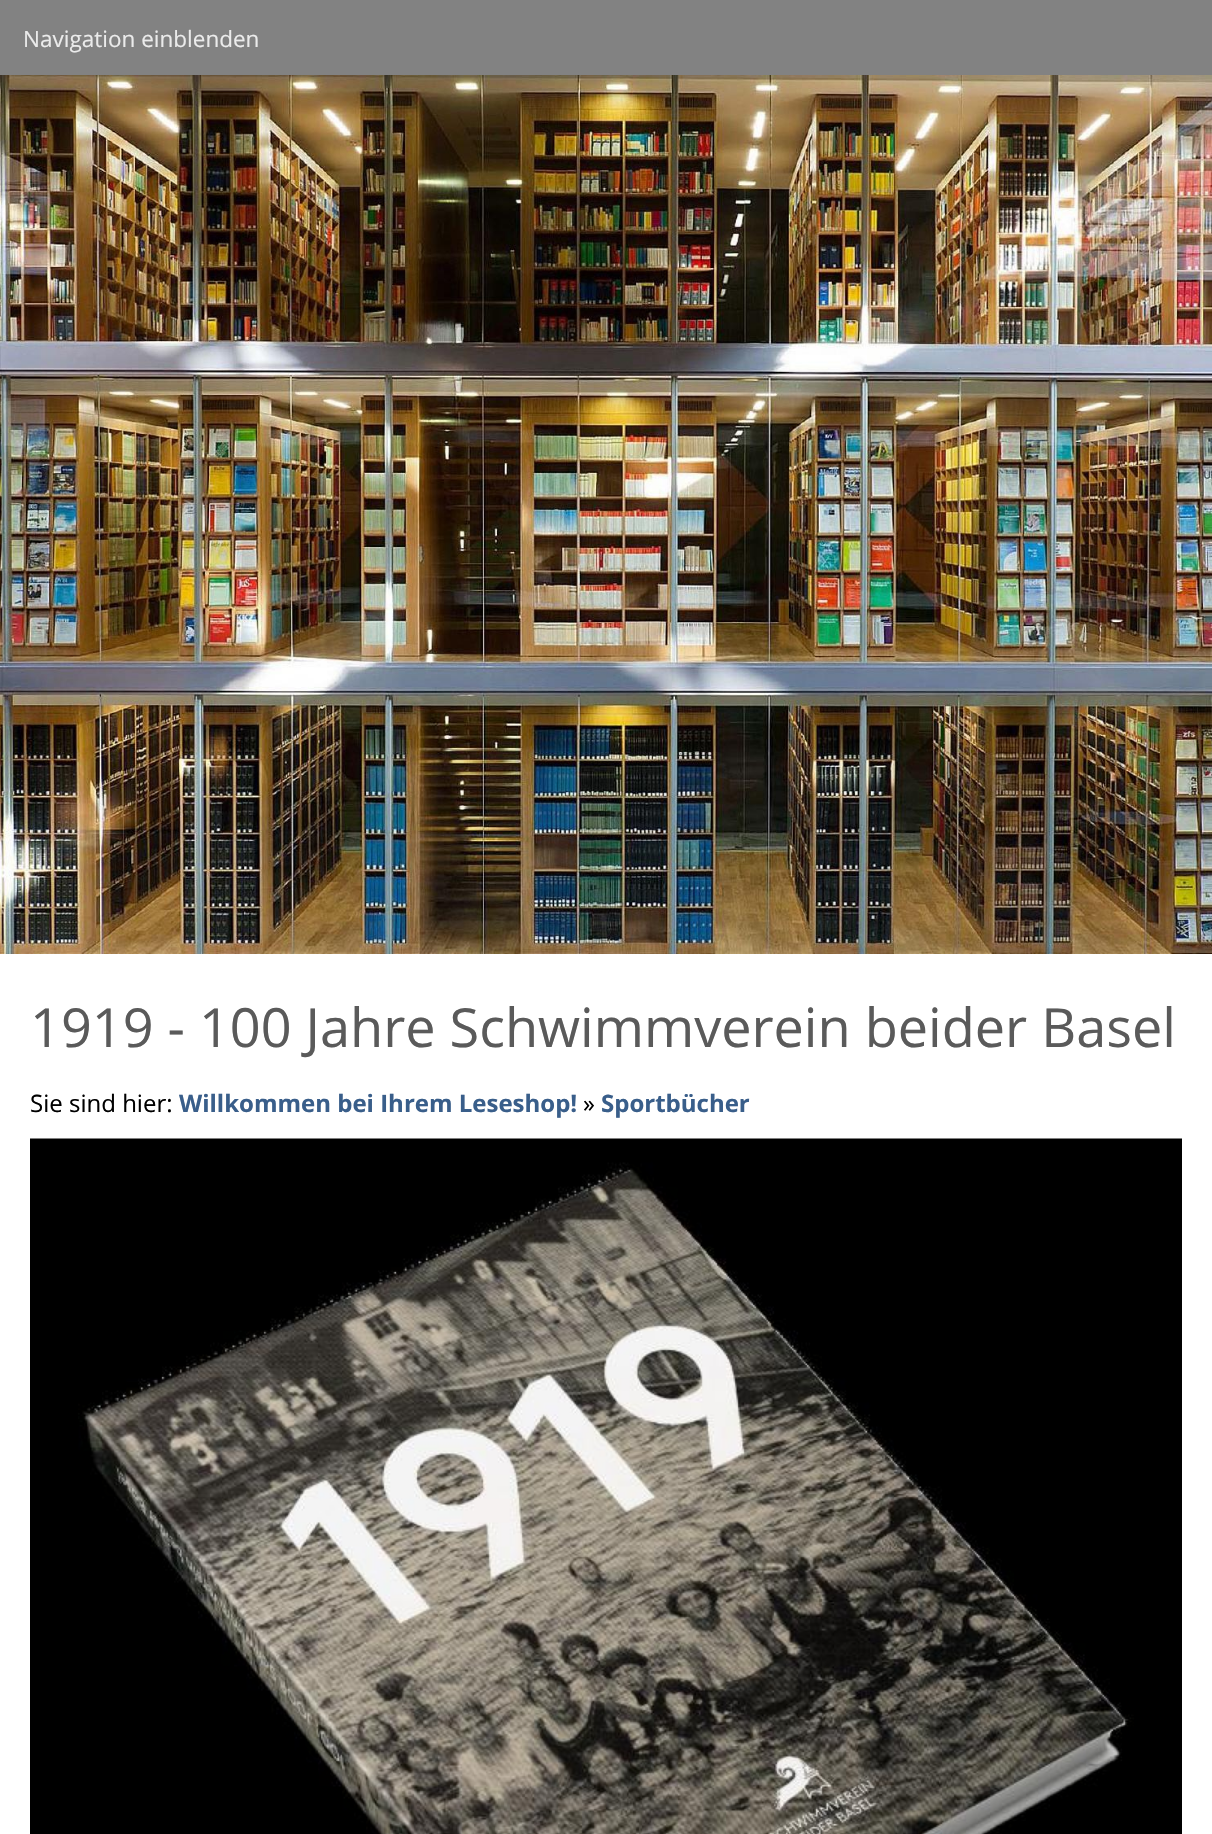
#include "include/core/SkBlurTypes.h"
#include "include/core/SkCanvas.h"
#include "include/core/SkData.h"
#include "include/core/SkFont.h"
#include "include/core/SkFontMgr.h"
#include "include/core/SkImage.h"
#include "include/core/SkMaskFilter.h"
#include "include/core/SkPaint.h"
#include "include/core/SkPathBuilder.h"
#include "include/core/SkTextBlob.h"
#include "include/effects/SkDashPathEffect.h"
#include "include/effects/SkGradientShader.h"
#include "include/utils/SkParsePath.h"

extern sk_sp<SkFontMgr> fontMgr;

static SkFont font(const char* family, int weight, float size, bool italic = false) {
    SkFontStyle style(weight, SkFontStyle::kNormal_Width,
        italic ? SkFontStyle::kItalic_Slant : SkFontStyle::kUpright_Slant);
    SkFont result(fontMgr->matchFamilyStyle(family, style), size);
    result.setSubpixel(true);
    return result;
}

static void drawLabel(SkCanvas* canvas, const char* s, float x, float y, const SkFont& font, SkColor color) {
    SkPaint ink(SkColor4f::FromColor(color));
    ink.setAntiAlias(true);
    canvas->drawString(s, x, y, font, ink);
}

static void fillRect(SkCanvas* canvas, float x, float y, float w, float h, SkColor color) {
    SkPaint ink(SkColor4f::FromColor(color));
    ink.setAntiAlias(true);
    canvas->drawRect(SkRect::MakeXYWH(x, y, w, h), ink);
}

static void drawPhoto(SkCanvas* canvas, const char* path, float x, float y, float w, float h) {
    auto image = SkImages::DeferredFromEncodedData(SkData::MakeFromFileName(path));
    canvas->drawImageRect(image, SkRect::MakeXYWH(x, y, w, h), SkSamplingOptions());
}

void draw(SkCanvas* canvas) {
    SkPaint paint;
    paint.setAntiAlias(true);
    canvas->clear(0xFFFFFFFF);
    fillRect(canvas, 0, 0, 1212, 75, 0xFF828282);
    SkFont font1 = font("Open Sans", 400, 22.5f);
    drawLabel(canvas, "Navigation einblenden", 23, 47, font1, 0xFFEBEBEB);
    drawPhoto(canvas, "assets/img1.png", 0, 75, 1212, 879);
    SkFont font2 = font("Open Sans", 400, 54);
    drawLabel(canvas, "1919 - 100 Jahre Schwimmverein beider Basel", 30, 1047, font2, 0xFF5A5A5A);
    SkFont font3 = font("Open Sans", 400, 24);
    drawLabel(canvas, "Sie sind hier:", 30, 1112, font3, 0xFF000000);
    SkFont font4 = font("Open Sans", 700, 24);
    drawLabel(canvas, "Willkommen bei Ihrem Leseshop!", 179, 1112, font4, 0xFF395E8A);
    drawLabel(canvas, "»", 583, 1112, font3, 0xFF000000);
    drawLabel(canvas, "Sportbücher", 601, 1112, font4, 0xFF395E8A);
    drawPhoto(canvas, "assets/img2.png", 30, 1138, 1152, 696);
}
